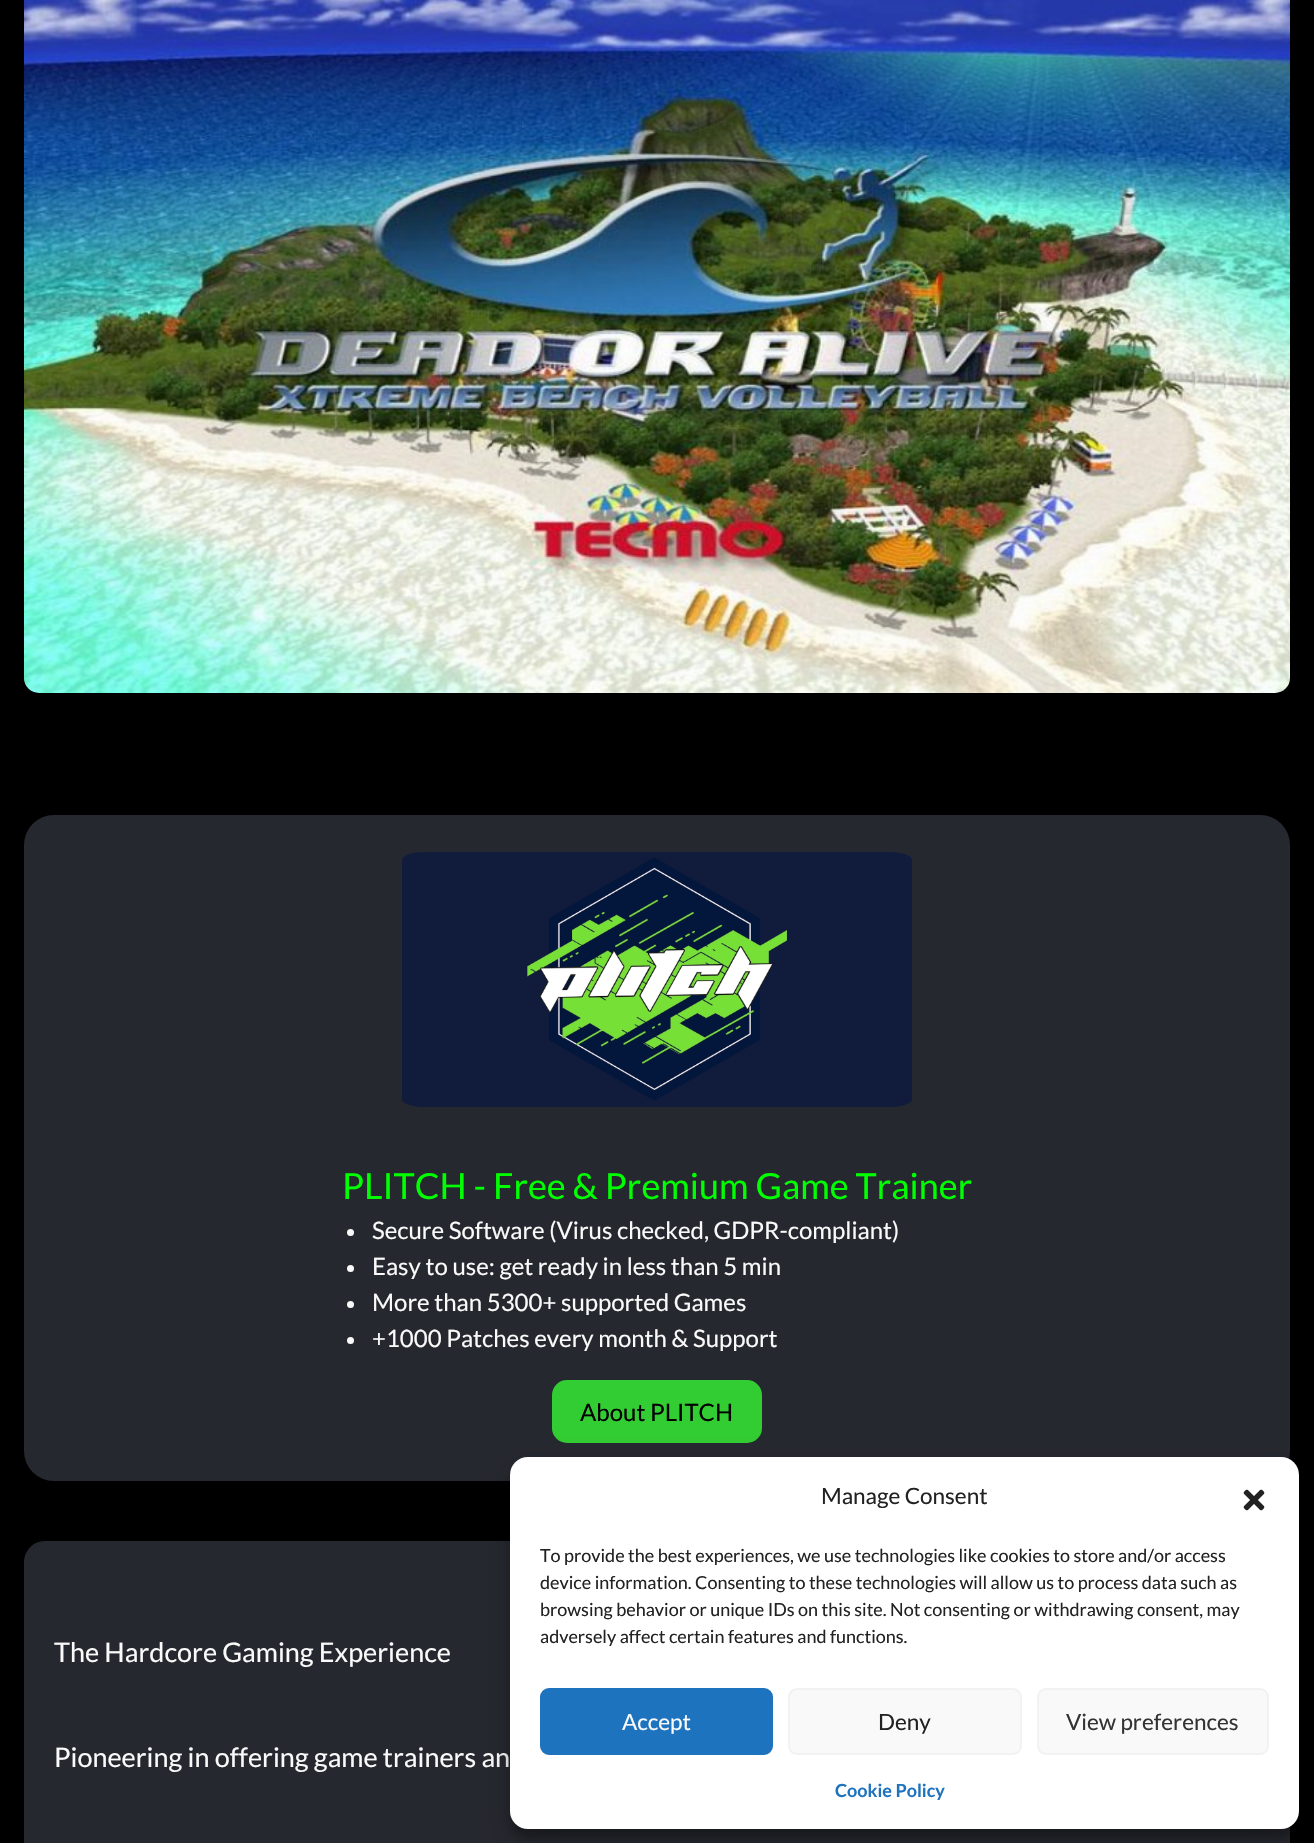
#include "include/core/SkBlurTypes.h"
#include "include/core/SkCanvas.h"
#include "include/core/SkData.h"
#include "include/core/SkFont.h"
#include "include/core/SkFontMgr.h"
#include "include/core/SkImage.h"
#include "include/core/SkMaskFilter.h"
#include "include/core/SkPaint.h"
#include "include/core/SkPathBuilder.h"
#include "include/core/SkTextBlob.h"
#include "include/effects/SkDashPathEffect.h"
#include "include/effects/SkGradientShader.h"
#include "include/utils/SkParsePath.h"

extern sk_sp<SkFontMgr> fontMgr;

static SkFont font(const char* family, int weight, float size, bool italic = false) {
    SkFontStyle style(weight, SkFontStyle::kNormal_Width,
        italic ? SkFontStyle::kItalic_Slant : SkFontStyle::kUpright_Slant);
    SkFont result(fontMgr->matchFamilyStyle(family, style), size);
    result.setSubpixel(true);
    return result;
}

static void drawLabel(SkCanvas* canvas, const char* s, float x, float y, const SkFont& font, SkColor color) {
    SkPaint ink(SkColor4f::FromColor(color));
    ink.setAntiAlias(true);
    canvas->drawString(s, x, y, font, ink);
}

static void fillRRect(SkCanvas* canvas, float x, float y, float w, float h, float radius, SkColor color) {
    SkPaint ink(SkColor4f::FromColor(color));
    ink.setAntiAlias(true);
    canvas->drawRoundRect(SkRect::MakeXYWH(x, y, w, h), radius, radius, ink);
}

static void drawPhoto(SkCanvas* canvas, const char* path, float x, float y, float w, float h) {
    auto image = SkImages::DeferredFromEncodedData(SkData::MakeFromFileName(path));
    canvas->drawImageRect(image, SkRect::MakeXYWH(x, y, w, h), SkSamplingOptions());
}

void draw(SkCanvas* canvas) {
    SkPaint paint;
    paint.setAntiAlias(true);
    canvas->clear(0xFF000000);
    drawPhoto(canvas, "assets/img1.png", 24, 0, 1266, 693);
    fillRRect(canvas, 24, 815, 1266, 666, 30, 0xFF26282F);
    drawPhoto(canvas, "assets/img2.png", 402, 852, 510, 255);
    SkFont font1 = font("Lato", 400, 36);
    drawLabel(canvas, "PLITCH - Free & Premium Game Trainer", 342, 1199, font1, 0xFF00FF00);
    paint.setColor(0xFFFAFAFA);
    canvas->drawCircle(350.5f, 1232.5f, 3.5f, paint);
    SkFont font2 = font("Lato", 400, 24);
    drawLabel(canvas, "Secure Software (Virus checked, GDPR-compliant)", 372, 1239, font2, 0xFFFAFAFA);
    canvas->drawCircle(350.5f, 1268.5f, 3.5f, paint);
    drawLabel(canvas, "Easy to use: get ready in less than 5 min", 372, 1275, font2, 0xFFFAFAFA);
    canvas->drawCircle(350.5f, 1304.5f, 3.5f, paint);
    drawLabel(canvas, "More than 5300+ supported Games", 372, 1311, font2, 0xFFFAFAFA);
    canvas->drawCircle(350.5f, 1340.5f, 3.5f, paint);
    drawLabel(canvas, "+1000 Patches every month & Support", 372, 1347, font2, 0xFFFAFAFA);
    fillRRect(canvas, 552, 1380, 210, 63, 15, 0xFF32CD32);
    drawLabel(canvas, "About PLITCH", 580, 1421, font2, 0xFF000000);
    fillRRect(canvas, 24, 1541, 1266, 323, 21, 0xFF26282F);
    SkFont font3 = font("Lato", 400, 27);
    drawLabel(canvas, "The Hardcore Gaming Experience", 54, 1662, font3, 0xFFFAFAFA);
    drawLabel(canvas, "Pioneering in offering game trainers an", 54, 1767, font3, 0xFFFAFAFA);
    paint.setColor(0x3B000000);
    paint.setMaskFilter(SkMaskFilter::MakeBlur(kNormal_SkBlurStyle, 4.5f));
    canvas->drawRoundRect(SkRect::MakeXYWH(510, 1466, 789, 372), 18, 18, paint);
    paint.setMaskFilter(nullptr);
    paint.setColor(0x30000000);
    paint.setMaskFilter(SkMaskFilter::MakeBlur(kNormal_SkBlurStyle, 15));
    canvas->drawRoundRect(SkRect::MakeXYWH(510, 1472, 789, 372), 18, 18, paint);
    paint.setMaskFilter(nullptr);
    fillRRect(canvas, 510, 1457, 789, 372, 18, 0xFFFFFFFF);
    SkFont font4 = font("Lato", 400, 22.5f);
    drawLabel(canvas, "Manage Consent", 821, 1504, font4, 0xFF222222);
    drawPhoto(canvas, "assets/img3.png", 1243, 1489, 22, 22);
    SkFont font5 = font("Lato", 400, 18);
    drawLabel(canvas, "To provide the best experiences, we use technologies like cookies to store and/or access", 540, 1562, font5, 0xFF222222);
    drawLabel(canvas, "device information. Consenting to these technologies will allow us to process data such as", 540, 1589, font5, 0xFF222222);
    drawLabel(canvas, "browsing behavior or unique IDs on this site. Not consenting or withdrawing consent, may", 540, 1616, font5, 0xFF222222);
    drawLabel(canvas, "adversely affect certain features and functions.", 540, 1643, font5, 0xFF222222);
    paint.setColor(0xFF1E73BE);
    canvas->drawRoundRect(SkRect::MakeXYWH(541, 1689, 231, 65), 8, 8, paint);
    paint.setStroke(true);
    paint.setStrokeWidth(2);
    canvas->drawRoundRect(SkRect::MakeXYWH(541, 1689, 231, 65), 8, 8, paint);
    drawLabel(canvas, "Accept", 622, 1730, font4, 0xFFFAFAFA);
    paint.setStroke(false);
    paint.setColor(0xFFF9F9F9);
    canvas->drawRoundRect(SkRect::MakeXYWH(789, 1689, 232, 65), 8, 8, paint);
    paint.setStroke(true);
    paint.setColor(0xFFF2F2F2);
    canvas->drawRoundRect(SkRect::MakeXYWH(789, 1689, 232, 65), 8, 8, paint);
    drawLabel(canvas, "Deny", 878, 1730, font4, 0xFF222222);
    paint.setStroke(false);
    paint.setColor(0xFFF9F9F9);
    canvas->drawRoundRect(SkRect::MakeXYWH(1038, 1689, 230, 65), 8, 8, paint);
    paint.setStroke(true);
    paint.setColor(0xFFF2F2F2);
    canvas->drawRoundRect(SkRect::MakeXYWH(1038, 1689, 230, 65), 8, 8, paint);
    drawLabel(canvas, "View preferences", 1066, 1730, font4, 0xFF333333);
    SkFont font6 = font("Lato", 700, 18);
    drawLabel(canvas, "Cookie Policy", 835, 1797, font6, 0xFF1E73BE);
}
